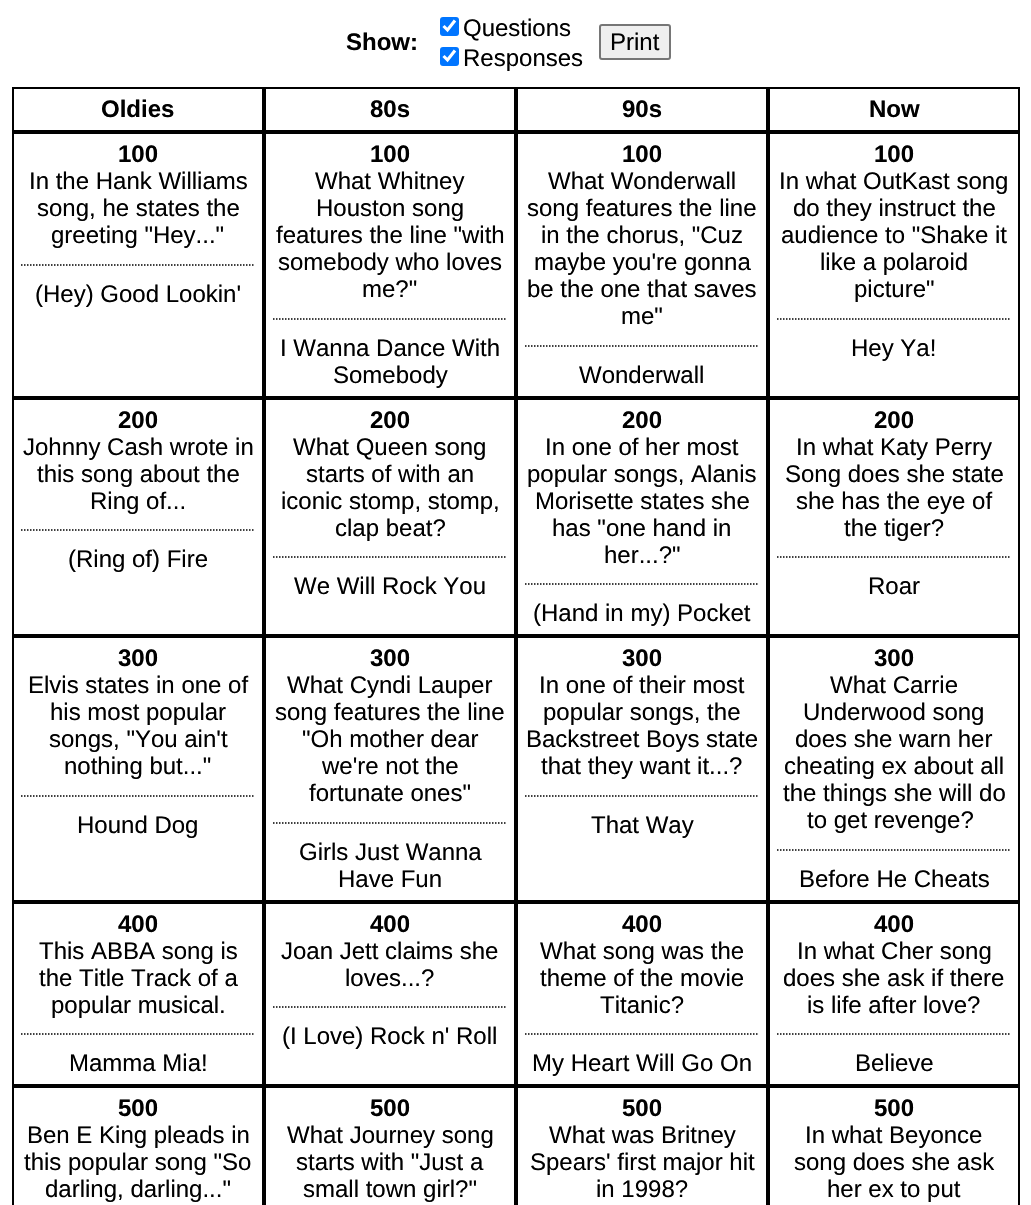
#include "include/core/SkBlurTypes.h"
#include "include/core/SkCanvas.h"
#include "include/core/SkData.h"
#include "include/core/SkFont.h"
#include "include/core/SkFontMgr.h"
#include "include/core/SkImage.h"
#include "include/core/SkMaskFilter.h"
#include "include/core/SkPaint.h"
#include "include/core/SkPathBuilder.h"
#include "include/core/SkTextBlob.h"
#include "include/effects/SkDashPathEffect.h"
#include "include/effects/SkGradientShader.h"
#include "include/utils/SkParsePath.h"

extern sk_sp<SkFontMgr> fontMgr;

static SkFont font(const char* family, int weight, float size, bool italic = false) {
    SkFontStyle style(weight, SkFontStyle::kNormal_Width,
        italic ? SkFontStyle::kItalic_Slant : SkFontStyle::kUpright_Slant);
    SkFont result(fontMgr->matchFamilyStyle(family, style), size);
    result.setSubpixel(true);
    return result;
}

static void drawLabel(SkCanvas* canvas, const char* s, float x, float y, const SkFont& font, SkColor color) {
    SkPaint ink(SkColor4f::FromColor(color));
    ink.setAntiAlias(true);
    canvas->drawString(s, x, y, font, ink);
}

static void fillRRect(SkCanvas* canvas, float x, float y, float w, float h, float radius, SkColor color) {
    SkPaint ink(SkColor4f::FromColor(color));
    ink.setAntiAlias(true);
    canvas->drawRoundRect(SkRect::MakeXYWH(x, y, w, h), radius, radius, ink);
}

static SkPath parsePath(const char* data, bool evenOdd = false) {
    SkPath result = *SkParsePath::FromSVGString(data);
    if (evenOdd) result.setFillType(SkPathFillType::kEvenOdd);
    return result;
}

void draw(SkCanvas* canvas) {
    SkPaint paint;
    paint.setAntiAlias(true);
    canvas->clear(0xFFFFFFFF);
    SkFont font1 = font("Liberation Sans", 700, 24);
    drawLabel(canvas, "Show:", 346, 50, font1, 0xFF000000);
    fillRRect(canvas, 440, 17, 19, 19, 3, 0xFF0075FF);
    paint.setStroke(true);
    paint.setStrokeWidth(3.1f);
    paint.setColor(0xFFFFFFFF);
    canvas->drawPath(parsePath("M443.5 26L447.5 30L455 20.5"), paint);
    SkFont font2 = font("Liberation Sans", 400, 24);
    drawLabel(canvas, "Questions", 463, 36, font2, 0xFF000000);
    fillRRect(canvas, 440, 47, 19, 19, 3, 0xFF0075FF);
    canvas->drawPath(parsePath("M443.5 56L447.5 60L455 50.5"), paint);
    drawLabel(canvas, "Responses", 463, 66, font2, 0xFF000000);
    paint.setStroke(false);
    paint.setColor(0xFFEFEFEF);
    canvas->drawRoundRect(SkRect::MakeXYWH(600, 25, 70, 34), 2, 2, paint);
    paint.setStroke(true);
    paint.setStrokeWidth(2);
    paint.setColor(0xFF767676);
    canvas->drawRoundRect(SkRect::MakeXYWH(600, 25, 70, 34), 2, 2, paint);
    drawLabel(canvas, "Print", 610, 50, font2, 0xFF000000);
    paint.setColor(0xFF000000);
    canvas->drawRect(SkRect::MakeXYWH(13, 88, 250, 43), paint);
    drawLabel(canvas, "Oldies", 101, 117, font1, 0xFF000000);
    canvas->drawRect(SkRect::MakeXYWH(265, 88, 250, 43), paint);
    drawLabel(canvas, "80s", 370, 117, font1, 0xFF000000);
    canvas->drawRect(SkRect::MakeXYWH(517, 88, 250, 43), paint);
    drawLabel(canvas, "90s", 622, 117, font1, 0xFF000000);
    canvas->drawRect(SkRect::MakeXYWH(769, 88, 250, 43), paint);
    drawLabel(canvas, "Now", 869, 117, font1, 0xFF000000);
    canvas->drawRect(SkRect::MakeXYWH(13, 133, 250, 264), paint);
    drawLabel(canvas, "100", 118, 162, font1, 0xFF000000);
    drawLabel(canvas, "In the Hank Williams", 29, 189, font2, 0xFF000000);
    drawLabel(canvas, "song, he states the", 37, 216, font2, 0xFF000000);
    drawLabel(canvas, "greeting \"Hey...\"", 51, 243, font2, 0xFF000000);
    paint.setStrokeWidth(1.5f);
    paint.setPathEffect(SkDashPathEffect::Make({{1.5f, 1.5f}}, 0));
    canvas->drawPath(parsePath("M21 265H255"), paint);
    paint.setPathEffect(nullptr);
    drawLabel(canvas, "(Hey) Good Lookin'", 35, 302, font2, 0xFF000000);
    paint.setStrokeWidth(2);
    canvas->drawRect(SkRect::MakeXYWH(265, 133, 250, 264), paint);
    drawLabel(canvas, "100", 370, 162, font1, 0xFF000000);
    drawLabel(canvas, "What Whitney", 315, 189, font2, 0xFF000000);
    drawLabel(canvas, "Houston song", 316, 216, font2, 0xFF000000);
    drawLabel(canvas, "features the line \"with", 276, 243, font2, 0xFF000000);
    drawLabel(canvas, "somebody who loves", 278, 270, font2, 0xFF000000);
    drawLabel(canvas, "me?\"", 362, 297, font2, 0xFF000000);
    paint.setStrokeWidth(1.5f);
    paint.setPathEffect(SkDashPathEffect::Make({{1.5f, 1.5f}}, 0));
    canvas->drawPath(parsePath("M273 319H507"), paint);
    paint.setPathEffect(nullptr);
    drawLabel(canvas, "I Wanna Dance With", 280, 356, font2, 0xFF000000);
    drawLabel(canvas, "Somebody", 333, 383, font2, 0xFF000000);
    paint.setStrokeWidth(2);
    canvas->drawRect(SkRect::MakeXYWH(517, 133, 250, 264), paint);
    drawLabel(canvas, "100", 622, 162, font1, 0xFF000000);
    drawLabel(canvas, "What Wonderwall", 548, 189, font2, 0xFF000000);
    drawLabel(canvas, "song features the line", 527, 216, font2, 0xFF000000);
    drawLabel(canvas, "in the chorus, \"Cuz", 541, 243, font2, 0xFF000000);
    drawLabel(canvas, "maybe you're gonna", 534, 270, font2, 0xFF000000);
    drawLabel(canvas, "be the one that saves", 527, 297, font2, 0xFF000000);
    drawLabel(canvas, "me\"", 621, 324, font2, 0xFF000000);
    paint.setStrokeWidth(1.5f);
    paint.setPathEffect(SkDashPathEffect::Make({{1.5f, 1.5f}}, 0));
    canvas->drawPath(parsePath("M525 346H759"), paint);
    paint.setPathEffect(nullptr);
    drawLabel(canvas, "Wonderwall", 579, 383, font2, 0xFF000000);
    paint.setStrokeWidth(2);
    canvas->drawRect(SkRect::MakeXYWH(769, 133, 250, 264), paint);
    drawLabel(canvas, "100", 874, 162, font1, 0xFF000000);
    drawLabel(canvas, "In what OutKast song", 779, 189, font2, 0xFF000000);
    drawLabel(canvas, "do they instruct the", 793, 216, font2, 0xFF000000);
    drawLabel(canvas, "audience to \"Shake it", 781, 243, font2, 0xFF000000);
    drawLabel(canvas, "like a polaroid", 820, 270, font2, 0xFF000000);
    drawLabel(canvas, "picture\"", 854, 297, font2, 0xFF000000);
    paint.setStrokeWidth(1.5f);
    paint.setPathEffect(SkDashPathEffect::Make({{1.5f, 1.5f}}, 0));
    canvas->drawPath(parsePath("M777 319H1011"), paint);
    paint.setPathEffect(nullptr);
    drawLabel(canvas, "Hey Ya!", 851, 356, font2, 0xFF000000);
    paint.setStrokeWidth(2);
    canvas->drawRect(SkRect::MakeXYWH(13, 399, 250, 236), paint);
    drawLabel(canvas, "200", 118, 428, font1, 0xFF000000);
    drawLabel(canvas, "Johnny Cash wrote in", 23, 455, font2, 0xFF000000);
    drawLabel(canvas, "this song about the", 37, 482, font2, 0xFF000000);
    drawLabel(canvas, "Ring of...", 90, 509, font2, 0xFF000000);
    paint.setStrokeWidth(1.5f);
    paint.setPathEffect(SkDashPathEffect::Make({{1.5f, 1.5f}}, 0));
    canvas->drawPath(parsePath("M21 530H255"), paint);
    paint.setPathEffect(nullptr);
    drawLabel(canvas, "(Ring of) Fire", 68, 567, font2, 0xFF000000);
    paint.setStrokeWidth(2);
    canvas->drawRect(SkRect::MakeXYWH(265, 399, 250, 236), paint);
    drawLabel(canvas, "200", 370, 428, font1, 0xFF000000);
    drawLabel(canvas, "What Queen song", 293, 455, font2, 0xFF000000);
    drawLabel(canvas, "starts of with an", 306, 482, font2, 0xFF000000);
    drawLabel(canvas, "iconic stomp, stomp,", 281, 509, font2, 0xFF000000);
    drawLabel(canvas, "clap beat?", 335, 536, font2, 0xFF000000);
    paint.setStrokeWidth(1.5f);
    paint.setPathEffect(SkDashPathEffect::Make({{1.5f, 1.5f}}, 0));
    canvas->drawPath(parsePath("M273 557H507"), paint);
    paint.setPathEffect(nullptr);
    drawLabel(canvas, "We Will Rock You", 294, 594, font2, 0xFF000000);
    paint.setStrokeWidth(2);
    canvas->drawRect(SkRect::MakeXYWH(517, 399, 250, 236), paint);
    drawLabel(canvas, "200", 622, 428, font1, 0xFF000000);
    drawLabel(canvas, "In one of her most", 545, 455, font2, 0xFF000000);
    drawLabel(canvas, "popular songs, Alanis", 527, 482, font2, 0xFF000000);
    drawLabel(canvas, "Morisette states she", 535, 509, font2, 0xFF000000);
    drawLabel(canvas, "has \"one hand in", 552, 536, font2, 0xFF000000);
    drawLabel(canvas, "her...?\"", 604, 563, font2, 0xFF000000);
    paint.setStrokeWidth(1.5f);
    paint.setPathEffect(SkDashPathEffect::Make({{1.5f, 1.5f}}, 0));
    canvas->drawPath(parsePath("M525 584H759"), paint);
    paint.setPathEffect(nullptr);
    drawLabel(canvas, "(Hand in my) Pocket", 533, 621, font2, 0xFF000000);
    paint.setStrokeWidth(2);
    canvas->drawRect(SkRect::MakeXYWH(769, 399, 250, 236), paint);
    drawLabel(canvas, "200", 874, 428, font1, 0xFF000000);
    drawLabel(canvas, "In what Katy Perry", 796, 455, font2, 0xFF000000);
    drawLabel(canvas, "Song does she state", 785, 482, font2, 0xFF000000);
    drawLabel(canvas, "she has the eye of", 796, 509, font2, 0xFF000000);
    drawLabel(canvas, "the tiger?", 844, 536, font2, 0xFF000000);
    paint.setStrokeWidth(1.5f);
    paint.setPathEffect(SkDashPathEffect::Make({{1.5f, 1.5f}}, 0));
    canvas->drawPath(parsePath("M777 557H1011"), paint);
    paint.setPathEffect(nullptr);
    drawLabel(canvas, "Roar", 868, 594, font2, 0xFF000000);
    paint.setStrokeWidth(2);
    canvas->drawRect(SkRect::MakeXYWH(13, 637, 250, 264), paint);
    drawLabel(canvas, "300", 118, 666, font1, 0xFF000000);
    drawLabel(canvas, "Elvis states in one of", 28, 693, font2, 0xFF000000);
    drawLabel(canvas, "his most popular", 50, 720, font2, 0xFF000000);
    drawLabel(canvas, "songs, \"You ain't", 49, 747, font2, 0xFF000000);
    drawLabel(canvas, "nothing but...\"", 64, 774, font2, 0xFF000000);
    paint.setStrokeWidth(1.5f);
    paint.setPathEffect(SkDashPathEffect::Make({{1.5f, 1.5f}}, 0));
    canvas->drawPath(parsePath("M21 796H255"), paint);
    paint.setPathEffect(nullptr);
    drawLabel(canvas, "Hound Dog", 77, 833, font2, 0xFF000000);
    paint.setStrokeWidth(2);
    canvas->drawRect(SkRect::MakeXYWH(265, 637, 250, 264), paint);
    drawLabel(canvas, "300", 370, 666, font1, 0xFF000000);
    drawLabel(canvas, "What Cyndi Lauper", 287, 693, font2, 0xFF000000);
    drawLabel(canvas, "song features the line", 275, 720, font2, 0xFF000000);
    drawLabel(canvas, "\"Oh mother dear", 302, 747, font2, 0xFF000000);
    drawLabel(canvas, "we're not the", 322, 774, font2, 0xFF000000);
    drawLabel(canvas, "fortunate ones\"", 309, 801, font2, 0xFF000000);
    paint.setStrokeWidth(1.5f);
    paint.setPathEffect(SkDashPathEffect::Make({{1.5f, 1.5f}}, 0));
    canvas->drawPath(parsePath("M273 823H507"), paint);
    paint.setPathEffect(nullptr);
    drawLabel(canvas, "Girls Just Wanna", 299, 860, font2, 0xFF000000);
    drawLabel(canvas, "Have Fun", 338, 887, font2, 0xFF000000);
    paint.setStrokeWidth(2);
    canvas->drawRect(SkRect::MakeXYWH(517, 637, 250, 264), paint);
    drawLabel(canvas, "300", 622, 666, font1, 0xFF000000);
    drawLabel(canvas, "In one of their most", 539, 693, font2, 0xFF000000);
    drawLabel(canvas, "popular songs, the", 543, 720, font2, 0xFF000000);
    drawLabel(canvas, "Backstreet Boys state", 526, 747, font2, 0xFF000000);
    drawLabel(canvas, "that they want it...?", 541, 774, font2, 0xFF000000);
    paint.setStrokeWidth(1.5f);
    paint.setPathEffect(SkDashPathEffect::Make({{1.5f, 1.5f}}, 0));
    canvas->drawPath(parsePath("M525 796H759"), paint);
    paint.setPathEffect(nullptr);
    drawLabel(canvas, "That Way", 591, 833, font2, 0xFF000000);
    paint.setStrokeWidth(2);
    canvas->drawRect(SkRect::MakeXYWH(769, 637, 250, 264), paint);
    drawLabel(canvas, "300", 874, 666, font1, 0xFF000000);
    drawLabel(canvas, "What Carrie", 830, 693, font2, 0xFF000000);
    drawLabel(canvas, "Underwood song", 803, 720, font2, 0xFF000000);
    drawLabel(canvas, "does she warn her", 795, 747, font2, 0xFF000000);
    drawLabel(canvas, "cheating ex about all", 784, 774, font2, 0xFF000000);
    drawLabel(canvas, "the things she will do", 783, 801, font2, 0xFF000000);
    drawLabel(canvas, "to get revenge?", 807, 828, font2, 0xFF000000);
    paint.setStrokeWidth(1.5f);
    paint.setPathEffect(SkDashPathEffect::Make({{1.5f, 1.5f}}, 0));
    canvas->drawPath(parsePath("M777 850H1011"), paint);
    paint.setPathEffect(nullptr);
    drawLabel(canvas, "Before He Cheats", 799, 887, font2, 0xFF000000);
    paint.setStrokeWidth(2);
    canvas->drawRect(SkRect::MakeXYWH(13, 903, 250, 182), paint);
    drawLabel(canvas, "400", 118, 932, font1, 0xFF000000);
    drawLabel(canvas, "This ABBA song is", 39, 959, font2, 0xFF000000);
    drawLabel(canvas, "the Title Track of a", 39, 986, font2, 0xFF000000);
    drawLabel(canvas, "popular musical.", 51, 1013, font2, 0xFF000000);
    paint.setStrokeWidth(1.5f);
    paint.setPathEffect(SkDashPathEffect::Make({{1.5f, 1.5f}}, 0));
    canvas->drawPath(parsePath("M21 1034H255"), paint);
    paint.setPathEffect(nullptr);
    drawLabel(canvas, "Mamma Mia!", 69, 1071, font2, 0xFF000000);
    paint.setStrokeWidth(2);
    canvas->drawRect(SkRect::MakeXYWH(265, 903, 250, 182), paint);
    drawLabel(canvas, "400", 370, 932, font1, 0xFF000000);
    drawLabel(canvas, "Joan Jett claims she", 281, 959, font2, 0xFF000000);
    drawLabel(canvas, "loves...?", 345, 986, font2, 0xFF000000);
    paint.setStrokeWidth(1.5f);
    paint.setPathEffect(SkDashPathEffect::Make({{1.5f, 1.5f}}, 0));
    canvas->drawPath(parsePath("M273 1007H507"), paint);
    paint.setPathEffect(nullptr);
    drawLabel(canvas, "(I Love) Rock n' Roll", 282, 1044, font2, 0xFF000000);
    paint.setStrokeWidth(2);
    canvas->drawRect(SkRect::MakeXYWH(517, 903, 250, 182), paint);
    drawLabel(canvas, "400", 622, 932, font1, 0xFF000000);
    drawLabel(canvas, "What song was the", 540, 959, font2, 0xFF000000);
    drawLabel(canvas, "theme of the movie", 540, 986, font2, 0xFF000000);
    drawLabel(canvas, "Titanic?", 600, 1013, font2, 0xFF000000);
    paint.setStrokeWidth(1.5f);
    paint.setPathEffect(SkDashPathEffect::Make({{1.5f, 1.5f}}, 0));
    canvas->drawPath(parsePath("M525 1034H759"), paint);
    paint.setPathEffect(nullptr);
    drawLabel(canvas, "My Heart Will Go On", 532, 1071, font2, 0xFF000000);
    paint.setStrokeWidth(2);
    canvas->drawRect(SkRect::MakeXYWH(769, 903, 250, 182), paint);
    drawLabel(canvas, "400", 874, 932, font1, 0xFF000000);
    drawLabel(canvas, "In what Cher song", 797, 959, font2, 0xFF000000);
    drawLabel(canvas, "does she ask if there", 783, 986, font2, 0xFF000000);
    drawLabel(canvas, "is life after love?", 807, 1013, font2, 0xFF000000);
    paint.setStrokeWidth(1.5f);
    paint.setPathEffect(SkDashPathEffect::Make({{1.5f, 1.5f}}, 0));
    canvas->drawPath(parsePath("M777 1034H1011"), paint);
    paint.setPathEffect(nullptr);
    drawLabel(canvas, "Believe", 855, 1071, font2, 0xFF000000);
    paint.setStrokeWidth(2);
    canvas->drawRect(SkRect::MakeXYWH(13, 1087, 250, 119), paint);
    drawLabel(canvas, "500", 118, 1116, font1, 0xFF000000);
    drawLabel(canvas, "Ben E King pleads in", 27, 1143, font2, 0xFF000000);
    drawLabel(canvas, "this popular song \"So", 24, 1170, font2, 0xFF000000);
    drawLabel(canvas, "darling, darling...\"", 45, 1197, font2, 0xFF000000);
    canvas->drawRect(SkRect::MakeXYWH(265, 1087, 250, 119), paint);
    drawLabel(canvas, "500", 370, 1116, font1, 0xFF000000);
    drawLabel(canvas, "What Journey song", 287, 1143, font2, 0xFF000000);
    drawLabel(canvas, "starts with \"Just a", 296, 1170, font2, 0xFF000000);
    drawLabel(canvas, "small town girl?\"", 303, 1197, font2, 0xFF000000);
    canvas->drawRect(SkRect::MakeXYWH(517, 1087, 250, 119), paint);
    drawLabel(canvas, "500", 622, 1116, font1, 0xFF000000);
    drawLabel(canvas, "What was Britney", 549, 1143, font2, 0xFF000000);
    drawLabel(canvas, "Spears' first major hit", 530, 1170, font2, 0xFF000000);
    drawLabel(canvas, "in 1998?", 596, 1197, font2, 0xFF000000);
    canvas->drawRect(SkRect::MakeXYWH(769, 1087, 250, 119), paint);
    drawLabel(canvas, "500", 874, 1116, font1, 0xFF000000);
    drawLabel(canvas, "In what Beyonce", 805, 1143, font2, 0xFF000000);
    drawLabel(canvas, "song does she ask", 794, 1170, font2, 0xFF000000);
    drawLabel(canvas, "her ex to put", 827, 1197, font2, 0xFF000000);
}
